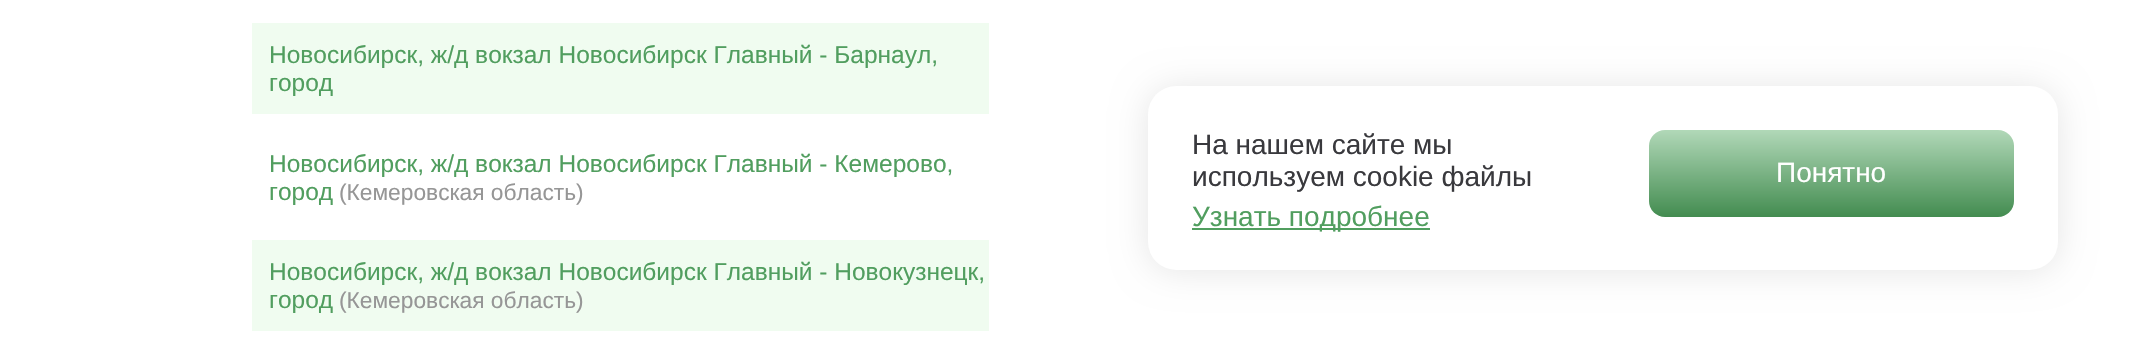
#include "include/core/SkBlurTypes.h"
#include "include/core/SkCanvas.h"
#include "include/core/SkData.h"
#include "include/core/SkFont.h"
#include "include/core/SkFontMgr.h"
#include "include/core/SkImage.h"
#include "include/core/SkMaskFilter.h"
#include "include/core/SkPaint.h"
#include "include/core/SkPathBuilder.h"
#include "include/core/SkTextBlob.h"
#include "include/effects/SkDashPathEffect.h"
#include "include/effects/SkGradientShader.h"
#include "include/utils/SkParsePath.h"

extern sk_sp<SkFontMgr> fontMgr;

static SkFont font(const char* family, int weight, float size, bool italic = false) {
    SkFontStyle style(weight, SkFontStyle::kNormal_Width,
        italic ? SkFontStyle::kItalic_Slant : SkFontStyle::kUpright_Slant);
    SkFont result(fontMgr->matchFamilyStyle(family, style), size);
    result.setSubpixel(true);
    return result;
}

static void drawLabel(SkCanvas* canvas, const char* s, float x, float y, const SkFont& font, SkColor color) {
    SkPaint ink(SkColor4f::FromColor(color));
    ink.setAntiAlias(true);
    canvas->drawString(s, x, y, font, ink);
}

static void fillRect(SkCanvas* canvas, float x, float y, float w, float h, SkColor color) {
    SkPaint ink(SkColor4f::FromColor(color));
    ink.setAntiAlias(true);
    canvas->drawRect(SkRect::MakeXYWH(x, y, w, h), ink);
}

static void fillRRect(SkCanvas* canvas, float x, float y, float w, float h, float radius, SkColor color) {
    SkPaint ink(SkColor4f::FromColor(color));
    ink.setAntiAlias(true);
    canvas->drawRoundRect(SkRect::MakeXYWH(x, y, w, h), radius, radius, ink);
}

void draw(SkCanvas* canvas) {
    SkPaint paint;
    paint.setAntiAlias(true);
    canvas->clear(0xFFFFFFFF);
    fillRect(canvas, 252, 23, 737, 91, 0xFFF0FCF0);
    SkFont font1 = font("Liberation Sans", 400, 24.5f);
    drawLabel(canvas, "Новосибирск, ж/д вокзал Новосибирск Главный - Барнаул,", 269, 63, font1, 0xFF519E5F);
    drawLabel(canvas, "город", 269, 91, font1, 0xFF519E5F);
    drawLabel(canvas, "Новосибирск, ж/д вокзал Новосибирск Главный - Кемерово,", 269, 172, font1, 0xFF519E5F);
    drawLabel(canvas, "город", 269, 200, font1, 0xFF519E5F);
    SkFont font2 = font("Liberation Sans", 400, 22.75f);
    drawLabel(canvas, "(Кемеровская область)", 339, 200, font2, 0xFF969696);
    fillRect(canvas, 252, 240, 737, 91, 0xFFF0FCF0);
    drawLabel(canvas, "Новосибирск, ж/д вокзал Новосибирск Главный - Новокузнецк,", 269, 280, font1, 0xFF519E5F);
    drawLabel(canvas, "город", 269, 308, font1, 0xFF519E5F);
    drawLabel(canvas, "(Кемеровская область)", 339, 308, font2, 0xFF969696);
    paint.setColor(0x1A000000);
    paint.setMaskFilter(SkMaskFilter::MakeBlur(kNormal_SkBlurStyle, 17.5f));
    canvas->drawRoundRect(SkRect::MakeXYWH(1148, 88, 910, 183), 28, 28, paint);
    paint.setMaskFilter(nullptr);
    fillRRect(canvas, 1148, 86, 910, 184, 28, 0xFFFFFFFF);
    SkFont font3 = font("Liberation Sans", 400, 28);
    drawLabel(canvas, "На нашем сайте мы", 1192, 154, font3, 0xFF39393D);
    drawLabel(canvas, "используем cookie файлы", 1192, 186, font3, 0xFF39393D);
    fillRect(canvas, 1192, 228, 238, 2, 0xFF519E5F);
    drawLabel(canvas, "Узнать подробнее", 1192, 226, font3, 0xFF519E5F);
    {
        const SkColor colors[] = {0xFF438C50, 0xFFB1D8B8};
        const float stops[] = {0, 1};
        const SkPoint ends[] = {{1831, 217}, {1831, 130}};
        paint.setShader(SkGradientShader::MakeLinear(ends, colors, stops, 2, SkTileMode::kClamp));
        paint.setAlpha(255);
    }
    canvas->drawRoundRect(SkRect::MakeXYWH(1649, 130, 365, 87), 16, 16, paint);
    drawLabel(canvas, "Понятно", 1776, 182, font3, 0xFFFFFFFF);
}
